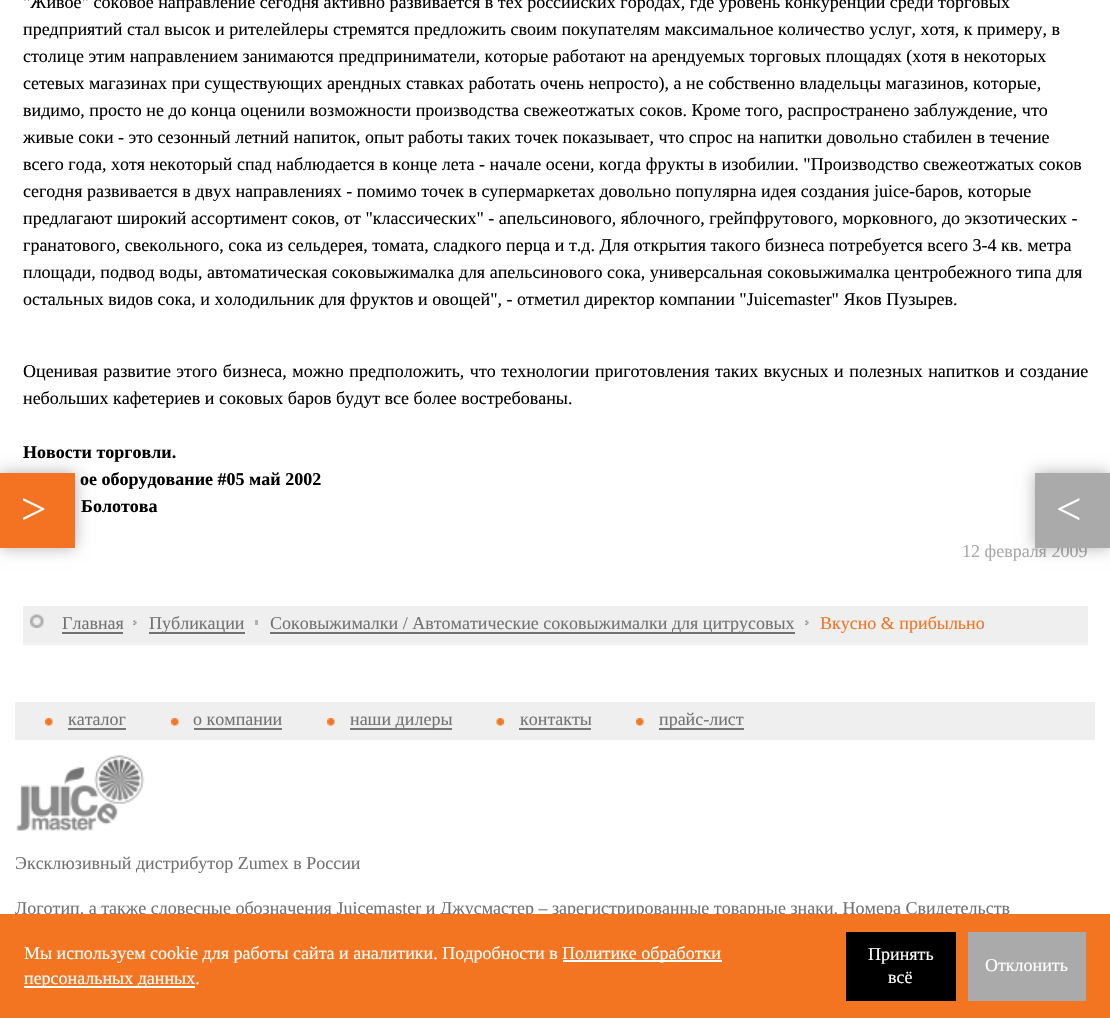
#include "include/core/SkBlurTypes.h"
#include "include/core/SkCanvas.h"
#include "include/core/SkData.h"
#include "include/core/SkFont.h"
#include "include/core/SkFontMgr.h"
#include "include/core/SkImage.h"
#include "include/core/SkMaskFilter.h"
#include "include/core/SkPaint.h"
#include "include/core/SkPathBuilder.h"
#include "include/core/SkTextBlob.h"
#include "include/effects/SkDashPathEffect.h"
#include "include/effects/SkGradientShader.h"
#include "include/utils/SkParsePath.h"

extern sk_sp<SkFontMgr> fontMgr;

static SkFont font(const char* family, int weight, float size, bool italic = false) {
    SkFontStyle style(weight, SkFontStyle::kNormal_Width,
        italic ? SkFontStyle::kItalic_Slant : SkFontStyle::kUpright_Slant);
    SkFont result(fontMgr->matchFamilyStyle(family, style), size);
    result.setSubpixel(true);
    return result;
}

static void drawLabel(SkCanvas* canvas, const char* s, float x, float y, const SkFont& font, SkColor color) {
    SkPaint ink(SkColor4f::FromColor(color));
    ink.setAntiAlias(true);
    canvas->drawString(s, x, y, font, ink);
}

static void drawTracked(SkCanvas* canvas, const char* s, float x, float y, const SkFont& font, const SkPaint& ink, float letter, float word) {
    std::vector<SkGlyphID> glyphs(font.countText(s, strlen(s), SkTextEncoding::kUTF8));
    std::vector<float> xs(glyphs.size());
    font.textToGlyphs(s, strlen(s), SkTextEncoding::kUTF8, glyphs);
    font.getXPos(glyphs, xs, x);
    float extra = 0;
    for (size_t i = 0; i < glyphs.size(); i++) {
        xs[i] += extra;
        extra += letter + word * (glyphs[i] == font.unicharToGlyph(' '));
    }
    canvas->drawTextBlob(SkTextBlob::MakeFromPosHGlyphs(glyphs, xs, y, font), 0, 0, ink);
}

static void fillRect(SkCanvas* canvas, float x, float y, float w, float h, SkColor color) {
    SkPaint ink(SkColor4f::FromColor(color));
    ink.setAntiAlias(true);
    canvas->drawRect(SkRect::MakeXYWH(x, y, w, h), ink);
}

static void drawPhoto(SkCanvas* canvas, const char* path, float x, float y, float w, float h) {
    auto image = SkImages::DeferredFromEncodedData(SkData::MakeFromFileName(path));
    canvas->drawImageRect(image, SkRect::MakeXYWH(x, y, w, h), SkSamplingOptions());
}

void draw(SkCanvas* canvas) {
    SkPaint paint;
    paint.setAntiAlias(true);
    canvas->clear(0xFFFFFFFF);
    SkFont font1 = font("Liberation Serif", 400, 18);
    drawLabel(canvas, "\"Живое\" соковое направление сегодня активно развивается в тех российских городах, где уровень конкуренции среди торговых", 23, 8, font1, 0xFF000000);
    drawLabel(canvas, "предприятий стал высок и рителейлеры стремятся предложить своим покупателям максимальное количество услуг, хотя, к примеру, в", 23, 35, font1, 0xFF000000);
    drawLabel(canvas, "столице этим направлением занимаются предприниматели, которые работают на арендуемых торговых площадях (хотя в некоторых", 23, 62, font1, 0xFF000000);
    drawLabel(canvas, "сетевых магазинах при существующих арендных ставках работать очень непросто), а не собственно владельцы магазинов, которые,", 23, 89, font1, 0xFF000000);
    drawLabel(canvas, "видимо, просто не до конца оценили возможности производства свежеотжатых соков. Кроме того, распространено заблуждение, что", 23, 116, font1, 0xFF000000);
    drawLabel(canvas, "живые соки - это сезонный летний напиток, опыт работы таких точек показывает, что спрос на напитки довольно стабилен в течение", 23, 143, font1, 0xFF000000);
    drawLabel(canvas, "всего года, хотя некоторый спад наблюдается в конце лета - начале осени, когда фрукты в изобилии. \"Производство свежеотжатых соков", 23, 170, font1, 0xFF000000);
    drawLabel(canvas, "сегодня развивается в двух направлениях - помимо точек в супермаркетах довольно популярна идея создания juice-баров, которые", 23, 197, font1, 0xFF000000);
    drawLabel(canvas, "предлагают широкий ассортимент соков, от \"классических\" - апельсинового, яблочного, грейпфрутового, морковного, до экзотических -", 23, 224, font1, 0xFF000000);
    drawLabel(canvas, "гранатового, свекольного, сока из сельдерея, томата, сладкого перца и т.д. Для открытия такого бизнеса потребуется всего 3-4 кв. метра", 23, 251, font1, 0xFF000000);
    drawLabel(canvas, "площади, подвод воды, автоматическая соковыжималка для апельсинового сока, универсальная соковыжималка центробежного типа для", 23, 278, font1, 0xFF000000);
    drawLabel(canvas, "остальных видов сока, и холодильник для фруктов и овощей\", - отметил директор компании \"Juicemaster\" Яков Пузырев.", 23, 305, font1, 0xFF000000);
    paint.setColor(0xFF000000);
    drawTracked(canvas, "Оценивая развитие этого бизнеса, можно предположить, что технологии приготовления таких вкусных и полезных напитков и создание", 23, 377, font1, paint, 0, 1);
    drawLabel(canvas, "небольших кафетериев и соковых баров будут все более востребованы.", 23, 404, font1, 0xFF000000);
    SkFont font2 = font("Liberation Serif", 700, 18);
    drawLabel(canvas, "Новости торговли.", 23, 458, font2, 0xFF000000);
    drawLabel(canvas, "ое оборудование #05 май 2002", 80, 485, font2, 0xFF000000);
    drawLabel(canvas, "Болотова", 81, 512, font2, 0xFF000000);
    drawLabel(canvas, "12 февраля 2009", 962, 557, font1, 0xFFAAAAAA);
    fillRect(canvas, 23, 606, 1065, 39, 0xFFEFEFEF);
    drawPhoto(canvas, "assets/img1.png", 30, 614, 14, 14);
    drawLabel(canvas, "Главная", 62, 629, font1, 0xFF727272);
    fillRect(canvas, 62, 632, 61, 2, 0xFF727272);
    drawPhoto(canvas, "assets/img2.png", 133, 620, 4, 5);
    fillRect(canvas, 149, 632, 96, 2, 0xFF727272);
    drawLabel(canvas, "Публикации", 149, 629, font1, 0xFF727272);
    fillRect(canvas, 255, 620, 3, 5, 0xFFB0B0B0);
    fillRect(canvas, 270, 632, 525, 2, 0xFF727272);
    drawLabel(canvas, "Соковыжималки / Автоматические соковыжималки для цитрусовых", 270, 629, font1, 0xFF727272);
    drawPhoto(canvas, "assets/img2.png", 805, 620, 4, 5);
    drawLabel(canvas, "Вкусно & прибыльно", 820, 629, font1, 0xFFF37421);
    fillRect(canvas, 15, 702, 1080, 38, 0xFFEFEFEF);
    drawPhoto(canvas, "assets/img3.png", 45, 718, 8, 8);
    drawLabel(canvas, "каталог", 68, 725, font1, 0xFF727272);
    fillRect(canvas, 68, 728, 58, 2, 0xFF777777);
    drawPhoto(canvas, "assets/img3.png", 171, 718, 8, 8);
    drawLabel(canvas, "о компании", 193, 725, font1, 0xFF727272);
    fillRect(canvas, 194, 728, 88, 2, 0xFF777777);
    drawPhoto(canvas, "assets/img4.png", 327, 718, 8, 8);
    fillRect(canvas, 350, 728, 102, 2, 0xFF777777);
    drawLabel(canvas, "наши дилеры", 350, 725, font1, 0xFF727272);
    drawPhoto(canvas, "assets/img5.png", 496, 718, 8, 8);
    drawLabel(canvas, "контакты", 520, 725, font1, 0xFF727272);
    fillRect(canvas, 519, 728, 72, 2, 0xFF777777);
    drawPhoto(canvas, "assets/img3.png", 636, 718, 8, 8);
    fillRect(canvas, 659, 728, 85, 2, 0xFF777777);
    drawLabel(canvas, "прайс-лист", 659, 725, font1, 0xFF727272);
    drawPhoto(canvas, "assets/img6.png", 16, 755, 129, 76);
    drawLabel(canvas, "Эксклюзивный дистрибутор Zumex в России", 15, 869, font1, 0xFF727272);
    drawLabel(canvas, "Логотип, а также словесные обозначения Juicemaster и Джусмастер – зарегистрированные товарные знаки. Номера Свидетельств", 15, 914, font1, 0xFF727272);
    paint.setColor(0x4D000000);
    paint.setMaskFilter(SkMaskFilter::MakeBlur(kNormal_SkBlurStyle, 7.5f));
    canvas->drawRect(SkRect::MakeXYWH(0, 473, 75, 75), paint);
    paint.setMaskFilter(nullptr);
    fillRect(canvas, 0, 473, 75, 75, 0xFFF37322);
    SkFont font3 = font("Liberation Serif", 400, 45);
    drawLabel(canvas, ">", 21, 524, font3, 0xFFFFFFFF);
    paint.setMaskFilter(SkMaskFilter::MakeBlur(kNormal_SkBlurStyle, 7.5f));
    canvas->drawRect(SkRect::MakeXYWH(1035, 473, 75, 75), paint);
    paint.setMaskFilter(nullptr);
    fillRect(canvas, 1035, 473, 75, 75, 0xFFAAAAAA);
    drawLabel(canvas, "<", 1056, 524, font3, 0xFFFFFFFF);
    fillRect(canvas, 0, 914, 1110, 104, 0xFFF37421);
    drawLabel(canvas, "Мы используем cookie для работы сайта и аналитики. Подробности в", 24, 959, font1, 0xFFFFFFFF);
    fillRect(canvas, 563, 960, 159, 2, 0xFFFFFFFF);
    drawLabel(canvas, "Политике обработки", 562, 959, font1, 0xFFFFFFFF);
    fillRect(canvas, 24, 986, 171, 2, 0xFFFFFFFF);
    drawLabel(canvas, "персональных данных.", 24, 984, font1, 0xFFFFFFFF);
    fillRect(canvas, 846, 932, 110, 69, 0xFF000000);
    drawLabel(canvas, "Принять", 868, 960, font1, 0xFFFFFFFF);
    drawLabel(canvas, "всё", 888, 983, font1, 0xFFFFFFFF);
    fillRect(canvas, 968, 932, 118, 69, 0xFFAAAAAA);
    drawLabel(canvas, "Отклонить", 985, 971, font1, 0xFFFFFFFF);
}
